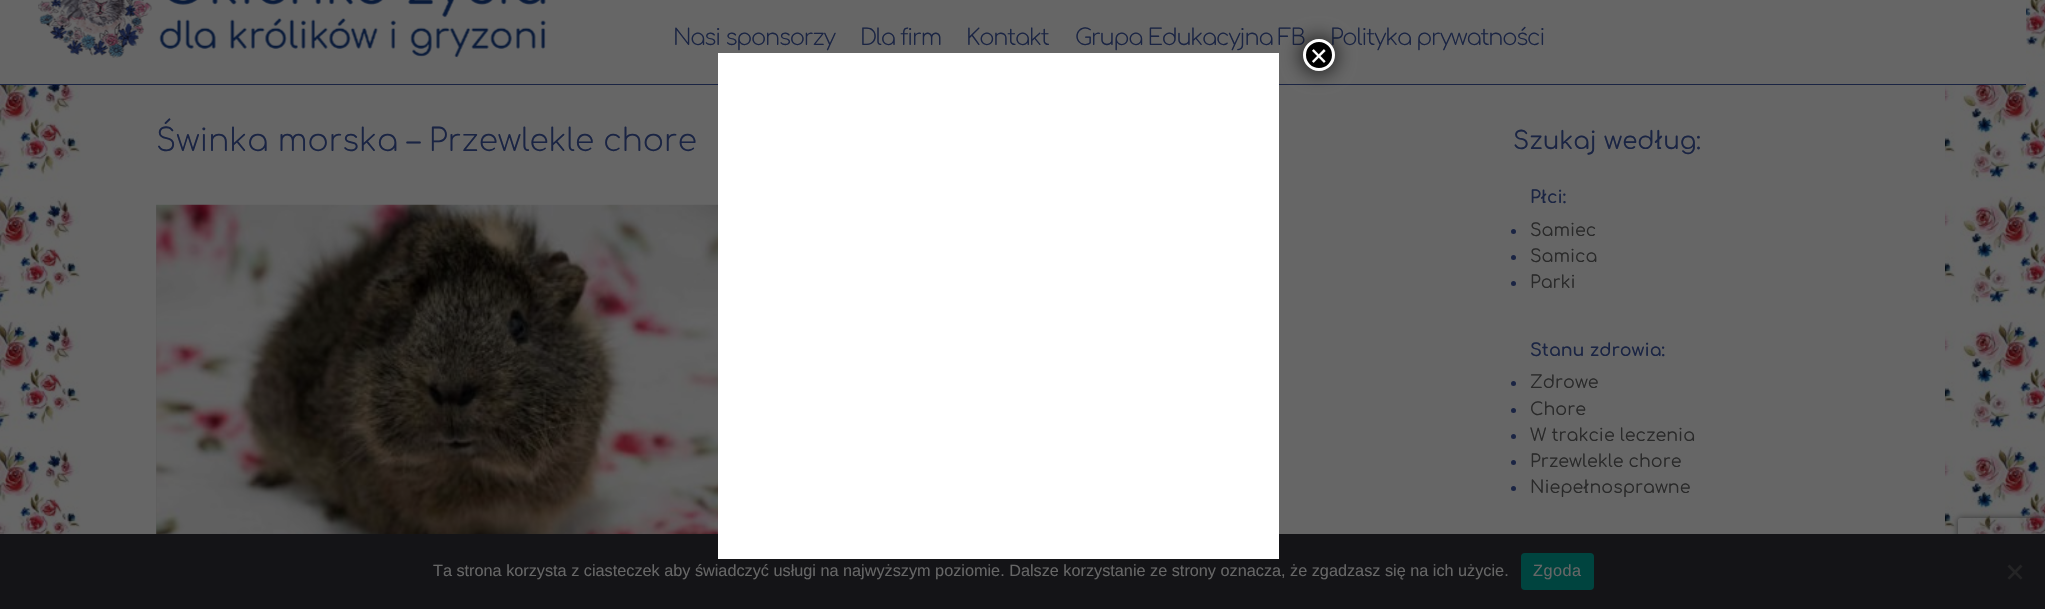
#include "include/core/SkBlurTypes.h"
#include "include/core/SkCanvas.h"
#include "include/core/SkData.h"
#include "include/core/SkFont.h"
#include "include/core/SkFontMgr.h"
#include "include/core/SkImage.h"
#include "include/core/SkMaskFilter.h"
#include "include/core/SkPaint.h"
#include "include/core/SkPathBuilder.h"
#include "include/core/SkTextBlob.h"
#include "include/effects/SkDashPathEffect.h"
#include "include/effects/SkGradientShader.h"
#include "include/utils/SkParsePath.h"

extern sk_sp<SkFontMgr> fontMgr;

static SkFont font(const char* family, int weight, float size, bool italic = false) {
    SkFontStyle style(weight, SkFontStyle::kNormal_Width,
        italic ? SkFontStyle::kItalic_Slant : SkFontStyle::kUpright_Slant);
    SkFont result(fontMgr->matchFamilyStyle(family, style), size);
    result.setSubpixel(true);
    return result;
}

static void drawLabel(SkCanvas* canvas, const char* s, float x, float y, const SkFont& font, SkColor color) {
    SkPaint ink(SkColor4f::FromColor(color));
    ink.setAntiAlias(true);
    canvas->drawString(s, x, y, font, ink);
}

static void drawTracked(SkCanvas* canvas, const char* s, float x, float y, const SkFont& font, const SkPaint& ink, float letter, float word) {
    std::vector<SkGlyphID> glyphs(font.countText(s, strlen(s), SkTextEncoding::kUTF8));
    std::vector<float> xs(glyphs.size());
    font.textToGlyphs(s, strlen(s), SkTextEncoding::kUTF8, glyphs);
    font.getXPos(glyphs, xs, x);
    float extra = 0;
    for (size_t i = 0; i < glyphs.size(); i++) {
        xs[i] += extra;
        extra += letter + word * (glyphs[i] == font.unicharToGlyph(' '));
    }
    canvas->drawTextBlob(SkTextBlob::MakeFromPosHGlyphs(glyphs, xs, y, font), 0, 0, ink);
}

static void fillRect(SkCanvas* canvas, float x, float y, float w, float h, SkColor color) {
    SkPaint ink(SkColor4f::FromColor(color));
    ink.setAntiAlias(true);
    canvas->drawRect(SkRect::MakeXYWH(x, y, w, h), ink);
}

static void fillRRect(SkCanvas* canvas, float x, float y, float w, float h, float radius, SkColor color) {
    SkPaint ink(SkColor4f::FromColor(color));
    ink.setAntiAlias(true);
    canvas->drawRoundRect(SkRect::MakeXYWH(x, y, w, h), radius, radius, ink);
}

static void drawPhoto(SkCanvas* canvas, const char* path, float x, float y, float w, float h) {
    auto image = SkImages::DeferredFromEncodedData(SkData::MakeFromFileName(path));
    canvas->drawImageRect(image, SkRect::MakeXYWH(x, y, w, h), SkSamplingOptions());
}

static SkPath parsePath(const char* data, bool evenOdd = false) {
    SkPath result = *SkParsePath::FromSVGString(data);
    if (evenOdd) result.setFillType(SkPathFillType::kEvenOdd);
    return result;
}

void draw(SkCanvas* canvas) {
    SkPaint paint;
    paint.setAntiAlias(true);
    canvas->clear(0xFFFFFFFF);
    drawPhoto(canvas, "assets/img1.png", 0, 0, 2045, 534);
    fillRect(canvas, 0, 0, 2026, 84, 0xFF666666);
    fillRect(canvas, 0, 84, 2026, 1, 0xFF1A2443);
    drawPhoto(canvas, "assets/img2.png", 38, 0, 508, 58);
    SkFont font1 = font("Comfortaa", 300, 22.5f);
    paint.setColor(0xFF1A2443);
    drawTracked(canvas, "Nasi sponsorzy", 673, 45, font1, paint, -1.25f, 0);
    drawTracked(canvas, "Dla firm", 860, 45, font1, paint, -1.25f, 0);
    drawTracked(canvas, "Kontakt", 966, 45, font1, paint, -1.25f, 0);
    drawTracked(canvas, "Grupa Edukacyjna FB", 1075, 45, font1, paint, -1.25f, 0);
    drawTracked(canvas, "Polityka prywatności", 1330, 45, font1, paint, -1.25f, 0);
    fillRect(canvas, 85, 85, 1860, 449, 0xFF666666);
    SkFont font2 = font("Comfortaa", 300, 31.25f);
    drawLabel(canvas, "Świnka morska – Przewlekle chore", 156, 151, font2, 0xFF1A2443);
    paint.setStroke(true);
    paint.setStrokeWidth(1);
    paint.setColor(0xFF565656);
    canvas->drawRect(SkRect::MakeXYWH(156.5f, 205.5f, 583, 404), paint);
    drawPhoto(canvas, "assets/img3.png", 156, 204, 562, 330);
    SkFont font3 = font("Comfortaa", 400, 24.5f);
    drawLabel(canvas, "Szukaj według:", 1513, 149, font3, 0xFF1A2443);
    SkFont font4 = font("Comfortaa", 600, 17.5f);
    drawLabel(canvas, "Płci:", 1530, 203, font4, 0xFF1A2443);
    paint.setStroke(false);
    paint.setColor(0xFF1A2443);
    canvas->drawCircle(1513.5f, 231.5f, 2.5f, paint);
    SkFont font5 = font("Comfortaa", 400, 17.5f);
    drawLabel(canvas, "Samiec", 1530, 236, font5, 0xFF292929);
    canvas->drawCircle(1513.5f, 257.5f, 2.5f, paint);
    drawLabel(canvas, "Samica", 1530, 262, font5, 0xFF292929);
    canvas->drawCircle(1513.5f, 283.5f, 2.5f, paint);
    drawLabel(canvas, "Parki", 1530, 288, font5, 0xFF292929);
    drawLabel(canvas, "Stanu zdrowia:", 1530, 356, font4, 0xFF1A2443);
    canvas->drawCircle(1513.5f, 383.5f, 2.5f, paint);
    drawLabel(canvas, "Zdrowe", 1530, 388, font5, 0xFF292929);
    canvas->drawCircle(1513.5f, 410.5f, 2.5f, paint);
    drawLabel(canvas, "Chore", 1530, 415, font5, 0xFF292929);
    canvas->drawCircle(1513.5f, 436.5f, 2.5f, paint);
    drawLabel(canvas, "W trakcie leczenia", 1530, 441, font5, 0xFF292929);
    canvas->drawCircle(1513.5f, 462.5f, 2.5f, paint);
    drawLabel(canvas, "Przewlekle chore", 1530, 467, font5, 0xFF292929);
    canvas->drawCircle(1513.5f, 488.5f, 2.5f, paint);
    drawLabel(canvas, "Niepełnosprawne", 1530, 493, font5, 0xFF292929);
    canvas->save();
    canvas->clipPath(parsePath("M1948 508H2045V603H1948ZM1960.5 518H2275.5C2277 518 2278 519 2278 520.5V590.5C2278 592 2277 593 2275.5 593H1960.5C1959 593 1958 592 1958 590.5V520.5C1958 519 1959 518 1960.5 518Z", true), true);
    paint.setColor(0xFF333333);
    paint.setMaskFilter(SkMaskFilter::MakeBlur(kNormal_SkBlurStyle, 3));
    canvas->drawRoundRect(SkRect::MakeXYWH(1958, 518, 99, 75), 2.5f, 2.5f, paint);
    paint.setMaskFilter(nullptr);
    canvas->restore();
    fillRect(canvas, 0, 534, 2045, 75, 0xFF141417);
    fillRect(canvas, 718, 53, 561, 506, 0xFFFFFFFF);
    paint.setColor(0xBF020202);
    paint.setMaskFilter(SkMaskFilter::MakeBlur(kNormal_SkBlurStyle, 9.5f));
    canvas->drawRoundRect(SkRect::MakeXYWH(1301, 38, 35, 35), 17.5f, 17.5f, paint);
    paint.setMaskFilter(nullptr);
    paint.setColor(0xFF000000);
    canvas->drawCircle(1319, 55, 14.5f, paint);
    paint.setStroke(true);
    paint.setStrokeWidth(3);
    paint.setColor(0xFFFFFFFF);
    canvas->drawCircle(1319, 55, 14.5f, paint);
    SkFont font6 = font("Liberation Sans", 400, 30);
    drawLabel(canvas, "×", 1310, 66, font6, 0xFFFFFFFF);
    SkFont font7 = font("Liberation Sans", 400, 16.25f);
    drawLabel(canvas, "Ta strona korzysta z ciasteczek aby świadczyć usługi na najwyższym poziomie. Dalsze korzystanie ze strony oznacza, że zgadzasz się na ich użycie.", 433, 576, font7, 0xFF666666);
    fillRRect(canvas, 1521, 553, 73, 37, 4, 0xFF00443F);
    paint.setStroke(false);
    paint.setColor(0xFF666666);
    drawTracked(canvas, "Zgoda", 1533, 576, font7, paint, 0.5f, 0);
    paint.setColor(0xFF242425);
    canvas->drawPath(parsePath("M2020.5 564.5L2022.5 566.5L2009.5 579.5L2007.5 578Z"), paint);
    canvas->drawPath(parsePath("M2007.5 566.5L2009.5 564.5L2022.5 578L2020.5 579.5Z"), paint);
}
